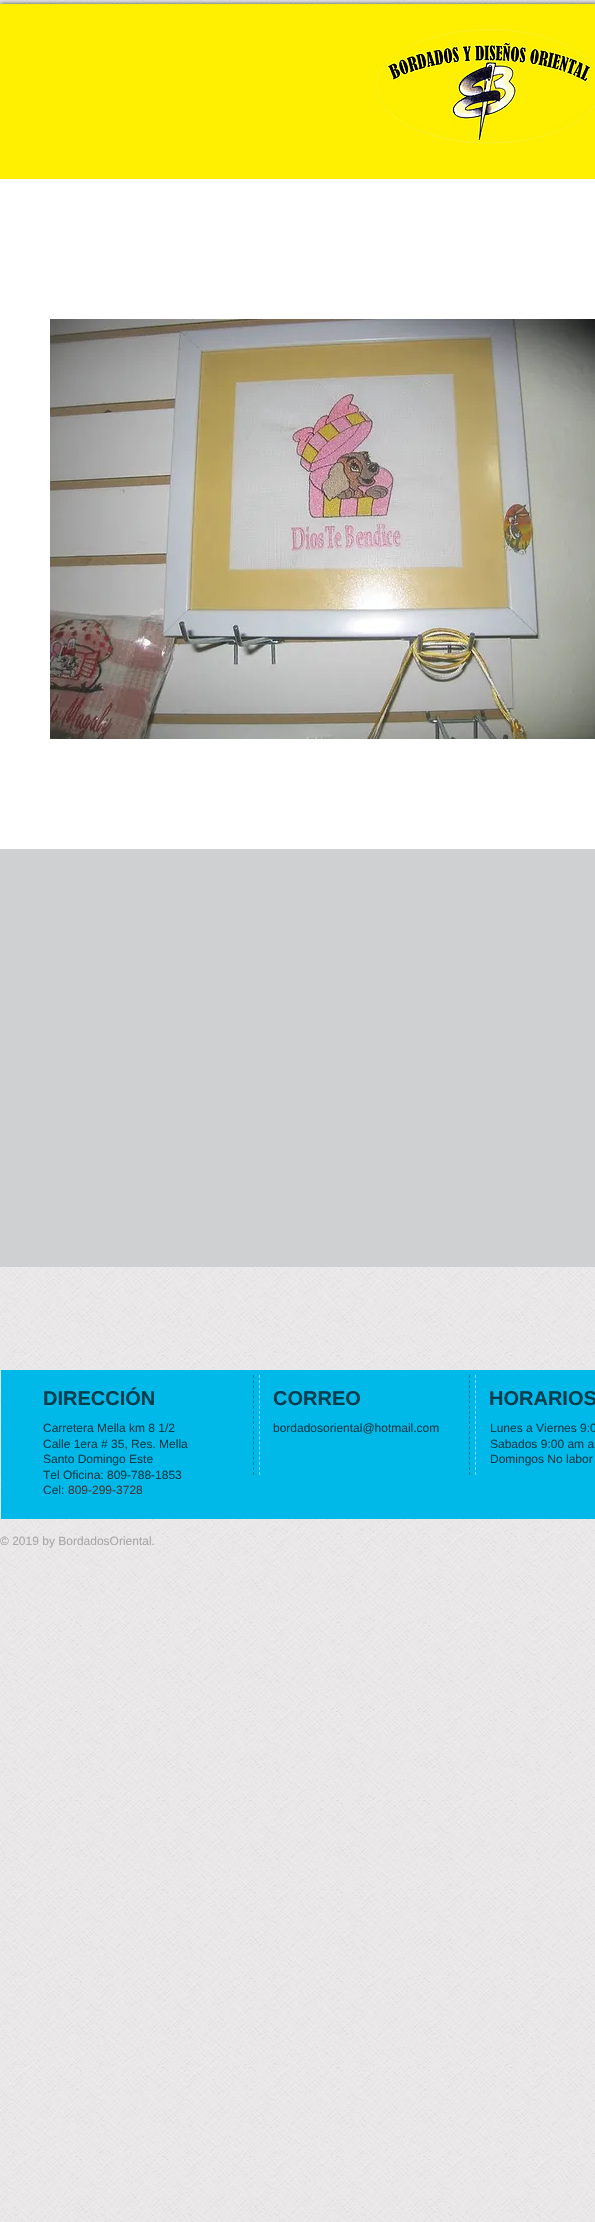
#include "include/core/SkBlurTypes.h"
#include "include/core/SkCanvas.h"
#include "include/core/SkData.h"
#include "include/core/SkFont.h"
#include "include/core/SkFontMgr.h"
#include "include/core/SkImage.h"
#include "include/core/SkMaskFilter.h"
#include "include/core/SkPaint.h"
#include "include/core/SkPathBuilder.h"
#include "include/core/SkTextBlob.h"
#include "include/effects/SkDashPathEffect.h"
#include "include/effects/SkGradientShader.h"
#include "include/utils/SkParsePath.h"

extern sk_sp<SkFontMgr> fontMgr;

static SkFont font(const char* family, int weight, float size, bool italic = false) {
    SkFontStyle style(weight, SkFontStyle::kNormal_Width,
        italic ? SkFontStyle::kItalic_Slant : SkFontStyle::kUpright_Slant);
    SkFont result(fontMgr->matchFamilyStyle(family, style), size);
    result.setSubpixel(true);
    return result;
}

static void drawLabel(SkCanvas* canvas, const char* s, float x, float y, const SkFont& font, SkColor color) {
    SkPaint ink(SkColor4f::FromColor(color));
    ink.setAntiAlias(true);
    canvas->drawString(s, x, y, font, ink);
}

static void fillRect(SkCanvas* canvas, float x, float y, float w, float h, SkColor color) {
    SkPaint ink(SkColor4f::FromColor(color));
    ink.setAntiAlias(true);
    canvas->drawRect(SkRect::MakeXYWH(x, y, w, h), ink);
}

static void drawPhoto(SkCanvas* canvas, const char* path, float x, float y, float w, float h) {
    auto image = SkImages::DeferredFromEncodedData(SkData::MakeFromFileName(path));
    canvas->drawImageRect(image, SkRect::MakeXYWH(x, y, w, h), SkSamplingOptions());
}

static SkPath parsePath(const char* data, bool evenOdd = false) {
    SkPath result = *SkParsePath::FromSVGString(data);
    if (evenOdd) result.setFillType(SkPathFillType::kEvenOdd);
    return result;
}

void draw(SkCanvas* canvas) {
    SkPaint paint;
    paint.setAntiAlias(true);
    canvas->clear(0xFFFFFFFF);
    drawPhoto(canvas, "assets/img1.png", 0, 0, 595, 2222);
    paint.setColor(0xB3000000);
    paint.setMaskFilter(SkMaskFilter::MakeBlur(kNormal_SkBlurStyle, 2.5f));
    canvas->drawRect(SkRect::MakeXYWH(0, 4, 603, 175), paint);
    paint.setMaskFilter(nullptr);
    fillRect(canvas, 0, 4, 595, 175, 0xFFFFF001);
    drawPhoto(canvas, "assets/img2.png", 376, 29, 219, 115);
    fillRect(canvas, 0, 179, 595, 670, 0xFFFFFFFF);
    drawPhoto(canvas, "assets/img3.png", 50, 319, 545, 420);
    fillRect(canvas, 0, 849, 595, 418, 0xFFCFD0D1);
    fillRect(canvas, 1, 1370, 594, 149, 0xFF00B9E8);
    SkFont font1 = font("Liberation Sans", 700, 20);
    drawLabel(canvas, "DIRECCIÓN", 43, 1405, font1, 0xFF003D4D);
    paint.setStroke(true);
    paint.setStrokeWidth(1);
    paint.setColor(0xFF80DCF4);
    paint.setPathEffect(SkDashPathEffect::Make({{3, 2.11f}}, 0));
    canvas->drawPath(parsePath("M259.5 1375V1475"), paint);
    paint.setPathEffect(nullptr);
    paint.setColor(0xFF007897);
    paint.setPathEffect(SkDashPathEffect::Make({{3, 2.11f}}, 0));
    canvas->drawPath(parsePath("M253.5 1375V1475"), paint);
    paint.setPathEffect(nullptr);
    drawLabel(canvas, "CORREO", 273, 1405, font1, 0xFF003D4D);
    paint.setColor(0xFF80DCF4);
    paint.setPathEffect(SkDashPathEffect::Make({{3, 2.11f}}, 0));
    canvas->drawPath(parsePath("M475.5 1375V1475"), paint);
    paint.setPathEffect(nullptr);
    paint.setColor(0xFF007897);
    paint.setPathEffect(SkDashPathEffect::Make({{3, 2.11f}}, 0));
    canvas->drawPath(parsePath("M469.5 1375V1475"), paint);
    paint.setPathEffect(nullptr);
    drawLabel(canvas, "HORARIOS", 489, 1405, font1, 0xFF003D4D);
    SkFont font2 = font("Liberation Sans", 400, 12);
    drawLabel(canvas, "Carretera Mella km 8 1/2", 43, 1432, font2, 0xFF003D4D);
    drawLabel(canvas, "Calle 1era # 35, Res. Mella", 43, 1448, font2, 0xFF003D4D);
    drawLabel(canvas, "Santo Domingo Este", 43, 1463, font2, 0xFF003D4D);
    drawLabel(canvas, "Tel Oficina: 809-788-1853", 43, 1479, font2, 0xFF003D4D);
    drawLabel(canvas, "Cel:", 43, 1494, font2, 0xFF003D4D);
    drawLabel(canvas, "809-299-3728", 68, 1494, font2, 0xFF3D3B3B);
    drawLabel(canvas, "bordadosoriental@hotmail.com", 273, 1432, font2, 0xFF003D4D);
    drawLabel(canvas, "Lunes a Viernes 9:0", 490, 1432, font2, 0xFF003D4D);
    drawLabel(canvas, "Sabados 9:00 am a", 490, 1448, font2, 0xFF003D4D);
    drawLabel(canvas, "Domingos No labor", 490, 1463, font2, 0xFF003D4D);
    drawLabel(canvas, "© 2019 by BordadosOriental.", 0, 1545, font2, 0xFFA8A8A8);
}
